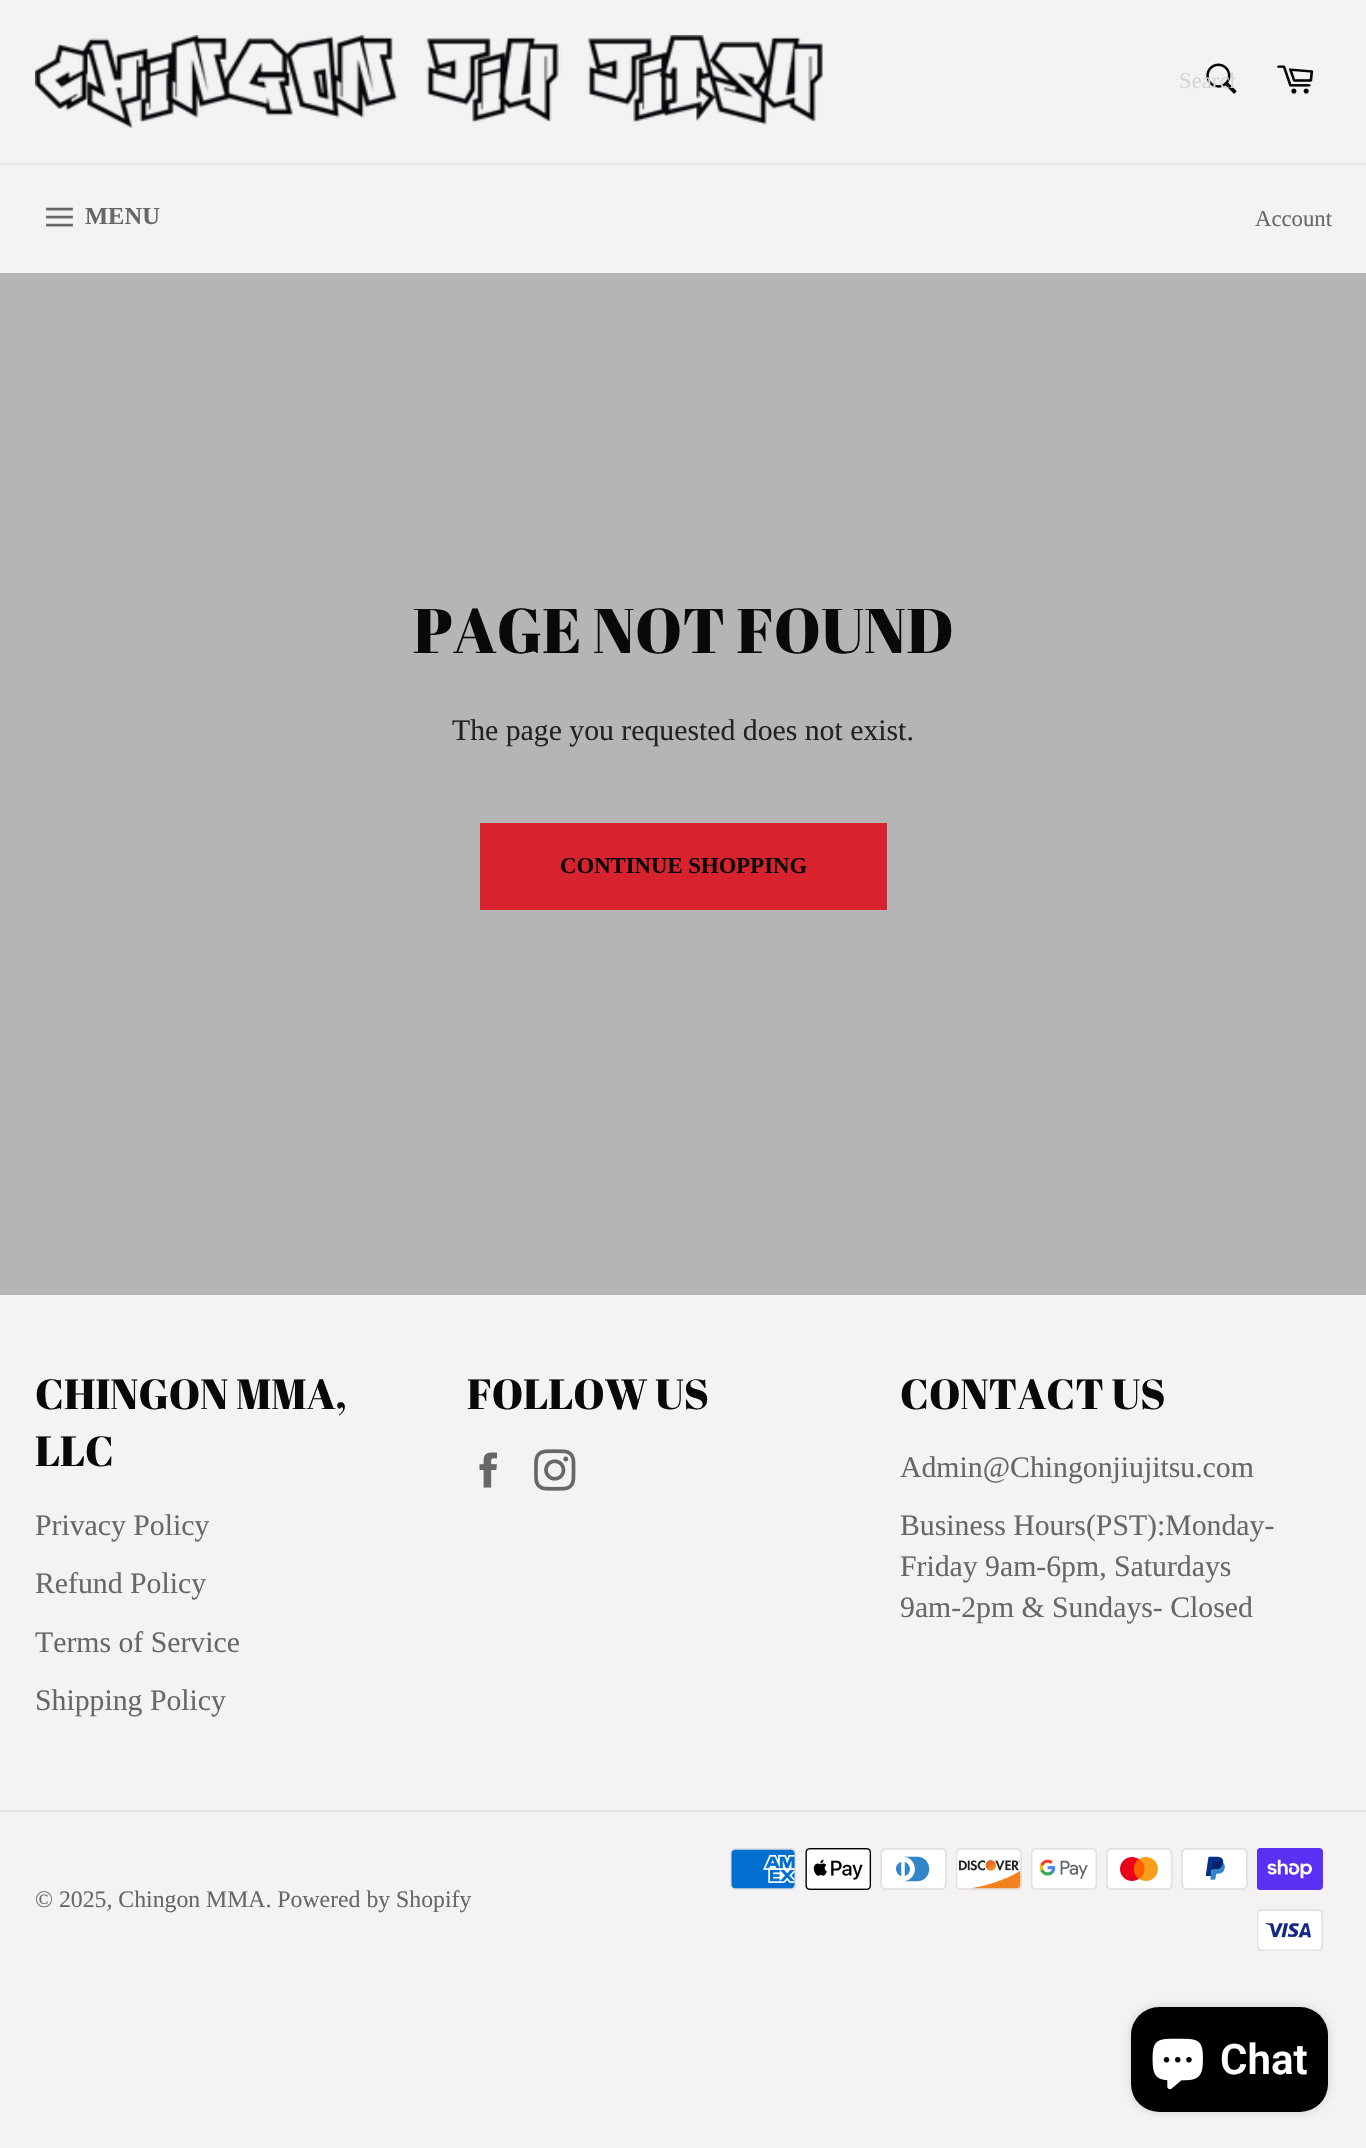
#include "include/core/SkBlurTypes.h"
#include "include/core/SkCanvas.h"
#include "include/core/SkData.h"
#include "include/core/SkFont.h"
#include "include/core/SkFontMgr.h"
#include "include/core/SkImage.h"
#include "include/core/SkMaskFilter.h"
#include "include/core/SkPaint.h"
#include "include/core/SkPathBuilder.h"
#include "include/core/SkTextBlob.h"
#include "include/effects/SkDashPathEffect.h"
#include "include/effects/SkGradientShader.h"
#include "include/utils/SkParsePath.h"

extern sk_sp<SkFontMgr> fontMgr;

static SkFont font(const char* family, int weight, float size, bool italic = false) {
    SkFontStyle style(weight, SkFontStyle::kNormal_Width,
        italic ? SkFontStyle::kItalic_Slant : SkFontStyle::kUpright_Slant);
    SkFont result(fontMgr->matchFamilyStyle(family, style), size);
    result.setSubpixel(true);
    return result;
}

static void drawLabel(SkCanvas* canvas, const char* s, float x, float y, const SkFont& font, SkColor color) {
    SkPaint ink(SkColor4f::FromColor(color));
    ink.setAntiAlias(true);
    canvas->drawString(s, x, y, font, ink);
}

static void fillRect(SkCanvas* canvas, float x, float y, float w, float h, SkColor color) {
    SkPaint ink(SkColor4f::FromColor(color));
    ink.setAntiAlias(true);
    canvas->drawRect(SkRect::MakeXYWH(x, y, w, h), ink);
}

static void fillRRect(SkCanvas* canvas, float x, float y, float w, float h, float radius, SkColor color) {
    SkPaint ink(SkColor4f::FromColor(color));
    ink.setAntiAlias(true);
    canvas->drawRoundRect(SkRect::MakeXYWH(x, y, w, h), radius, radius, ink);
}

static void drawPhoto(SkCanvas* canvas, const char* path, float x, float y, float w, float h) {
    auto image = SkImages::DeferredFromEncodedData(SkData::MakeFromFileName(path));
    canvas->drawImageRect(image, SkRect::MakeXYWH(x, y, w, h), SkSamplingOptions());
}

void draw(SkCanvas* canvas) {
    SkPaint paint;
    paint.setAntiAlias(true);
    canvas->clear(0xFFF4F2F2);
    fillRect(canvas, 0, 273, 1366, 1022, 0xFFB5B5B5);
    drawPhoto(canvas, "assets/img1.png", 35, 35, 788, 93);
    drawPhoto(canvas, "assets/img2.png", 1206, 63, 31, 31);
    canvas->save();
    canvas->clipRect(SkRect::MakeXYWH(1180, 68, 56, 28));
    SkFont font1 = font("Liberation Serif", 400, 22.75f);
    drawLabel(canvas, "Search", 1179, 88, font1, 0xFFD7D5D5);
    canvas->restore();
    drawPhoto(canvas, "assets/img3.png", 1277, 65, 37, 29);
    fillRect(canvas, 0, 163, 1366, 2, 0xFFE8E4E4);
    drawPhoto(canvas, "assets/img4.png", 46, 207, 27, 20);
    SkFont font2 = font("Liberation Serif", 700, 24.5f);
    drawLabel(canvas, "MENU", 85, 224, font2, 0xFF686666);
    drawLabel(canvas, "Account", 1255, 226, font1, 0xFF686666);
    SkFont font3 = font("Abril Fatface", 400, 63);
    drawLabel(canvas, "PAGE NOT FOUND", 413, 653, font3, 0xFF0A0909);
    SkFont font4 = font("Liberation Serif", 400, 29.75f);
    drawLabel(canvas, "The page you requested does not exist.", 452, 740, font4, 0xFF222222);
    fillRect(canvas, 480, 823, 407, 87, 0xFFD8232F);
    SkFont font5 = font("Liberation Serif", 700, 22.75f);
    drawLabel(canvas, "CONTINUE SHOPPING", 560, 873, font5, 0xFF0A0909);
    SkFont font6 = font("Abril Fatface", 400, 42);
    drawLabel(canvas, "CHINGON MMA,", 35, 1409, font6, 0xFF0A0909);
    drawLabel(canvas, "LLC", 35, 1466, font6, 0xFF0A0909);
    drawLabel(canvas, "Privacy Policy", 35, 1535, font4, 0xFF686666);
    drawLabel(canvas, "Refund Policy", 35, 1593, font4, 0xFF686666);
    drawLabel(canvas, "Terms of Service", 35, 1652, font4, 0xFF686666);
    drawLabel(canvas, "Shipping Policy", 35, 1710, font4, 0xFF686666);
    drawLabel(canvas, "FOLLOW US", 467, 1409, font6, 0xFF0A0909);
    drawPhoto(canvas, "assets/img5.png", 479, 1452, 18, 36);
    drawPhoto(canvas, "assets/img6.png", 534, 1449, 42, 42);
    drawLabel(canvas, "CONTACT US", 900, 1409, font6, 0xFF0A0909);
    drawLabel(canvas, "Admin@Chingonjiujitsu.com", 900, 1477, font4, 0xFF686666);
    drawLabel(canvas, "Business Hours(PST):Monday-", 900, 1535, font4, 0xFF686666);
    drawLabel(canvas, "Friday 9am-6pm, Saturdays", 900, 1576, font4, 0xFF686666);
    drawLabel(canvas, "9am-2pm & Sundays- Closed", 900, 1617, font4, 0xFF686666);
    fillRect(canvas, 0, 1810, 1366, 2, 0xFFE8E4E4);
    SkFont font7 = font("Liberation Serif", 400, 23.75f);
    drawLabel(canvas, "© 2025, Chingon MMA. Powered by Shopify", 35, 1907, font7, 0xFF686666);
    drawPhoto(canvas, "assets/img7.png", 730, 1848, 66, 42);
    drawPhoto(canvas, "assets/img8.png", 805, 1848, 67, 42);
    drawPhoto(canvas, "assets/img9.png", 880, 1848, 67, 42);
    drawPhoto(canvas, "assets/img10.png", 956, 1848, 66, 42);
    drawPhoto(canvas, "assets/img11.png", 1031, 1848, 66, 42);
    drawPhoto(canvas, "assets/img12.png", 1106, 1848, 67, 42);
    drawPhoto(canvas, "assets/img13.png", 1181, 1848, 67, 42);
    drawPhoto(canvas, "assets/img14.png", 1257, 1848, 66, 42);
    drawPhoto(canvas, "assets/img15.png", 1257, 1909, 66, 42);
    paint.setColor(0x26000000);
    paint.setMaskFilter(SkMaskFilter::MakeBlur(kNormal_SkBlurStyle, 4.5f));
    canvas->drawRoundRect(SkRect::MakeXYWH(1131, 2007, 197, 105), 28, 28, paint);
    paint.setMaskFilter(nullptr);
    fillRRect(canvas, 1131, 2007, 197, 105, 28, 0xFF000000);
    drawPhoto(canvas, "assets/img16.png", 1152, 2038, 51, 52);
    SkFont font8 = font("Roboto", 600, 42);
    drawLabel(canvas, "Chat", 1220, 2074, font8, 0xFFFFFFFF);
}
